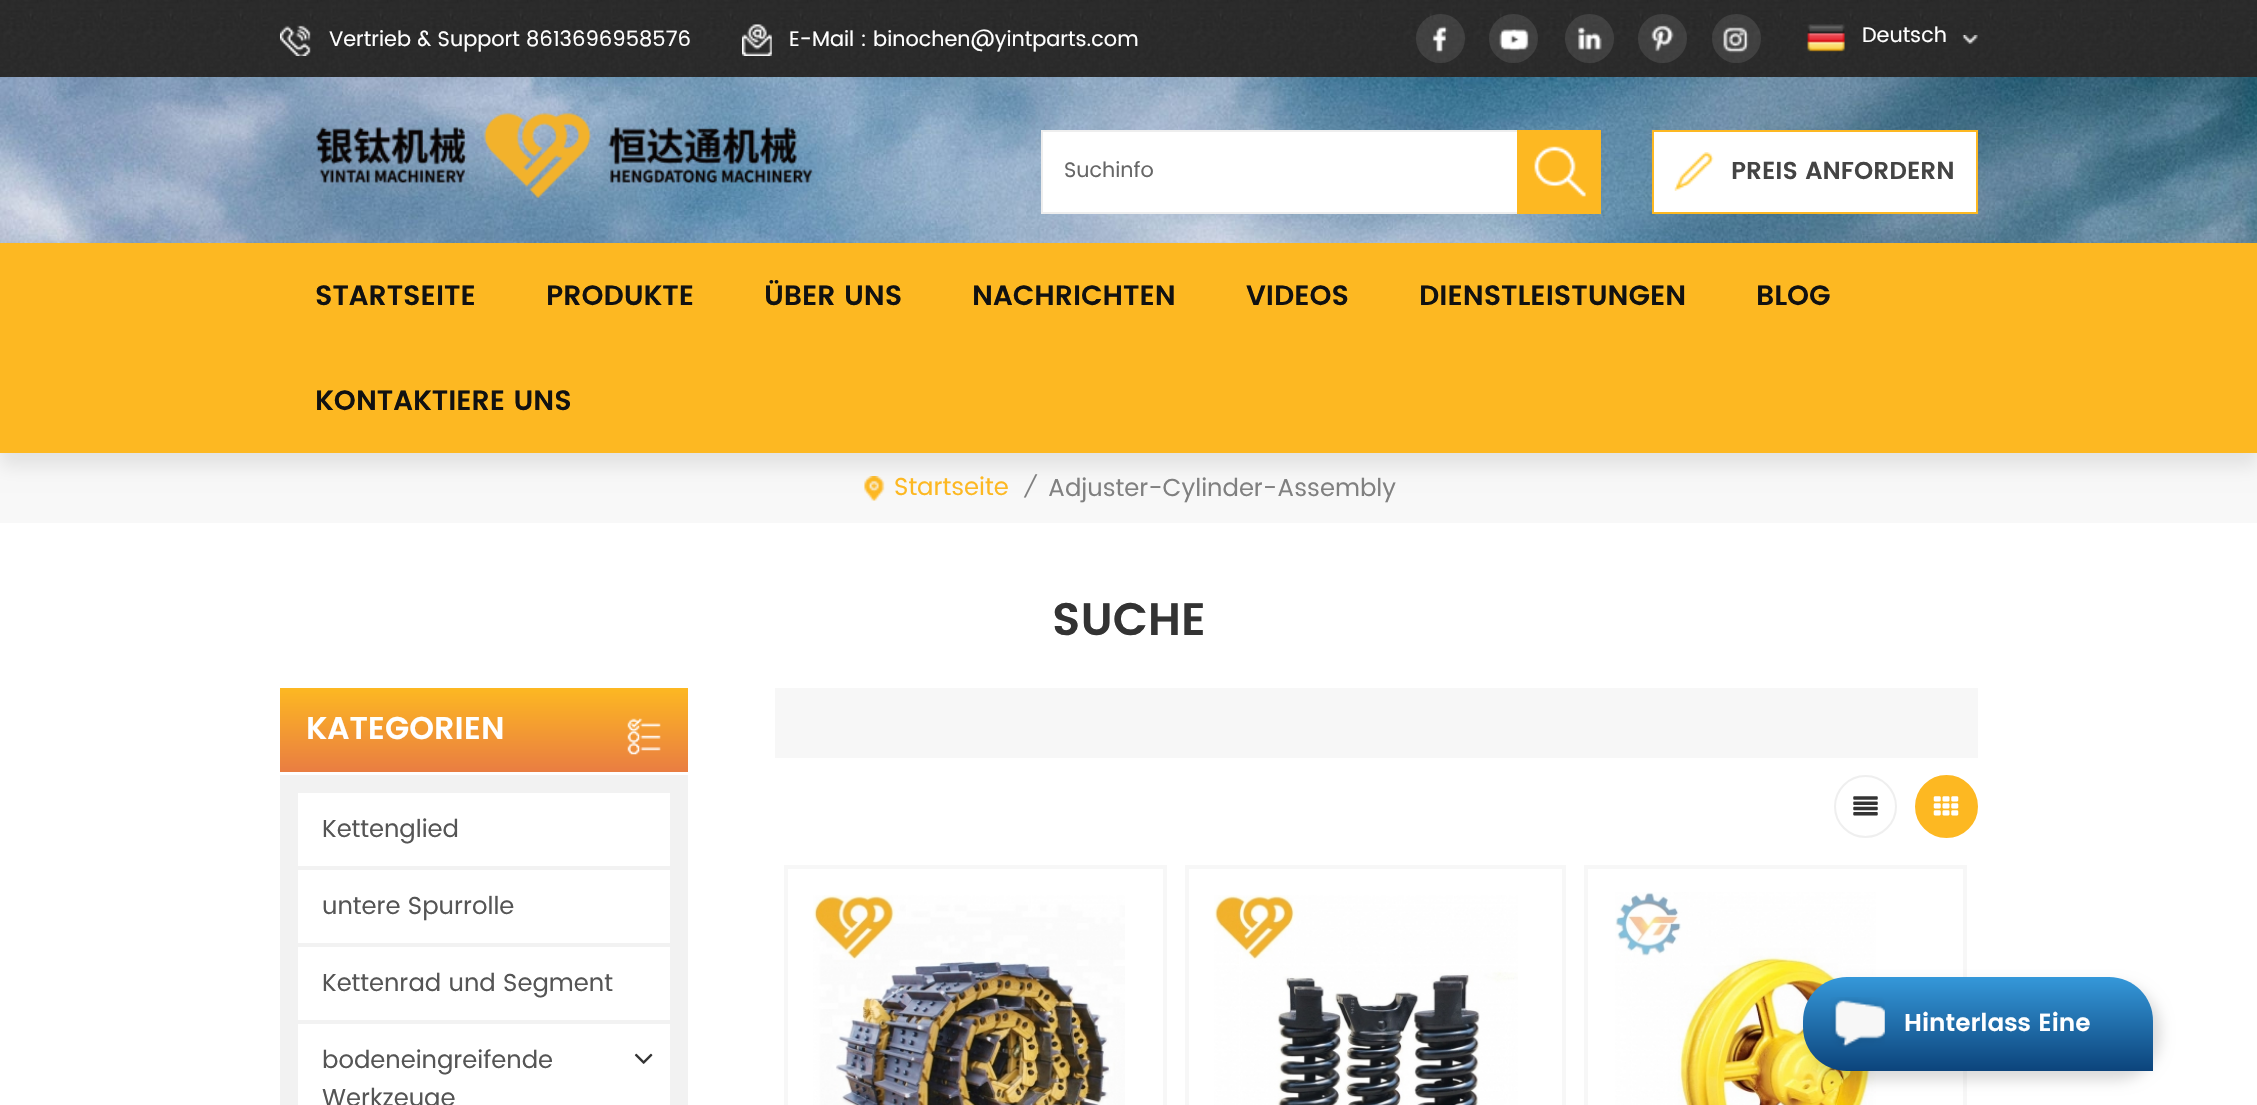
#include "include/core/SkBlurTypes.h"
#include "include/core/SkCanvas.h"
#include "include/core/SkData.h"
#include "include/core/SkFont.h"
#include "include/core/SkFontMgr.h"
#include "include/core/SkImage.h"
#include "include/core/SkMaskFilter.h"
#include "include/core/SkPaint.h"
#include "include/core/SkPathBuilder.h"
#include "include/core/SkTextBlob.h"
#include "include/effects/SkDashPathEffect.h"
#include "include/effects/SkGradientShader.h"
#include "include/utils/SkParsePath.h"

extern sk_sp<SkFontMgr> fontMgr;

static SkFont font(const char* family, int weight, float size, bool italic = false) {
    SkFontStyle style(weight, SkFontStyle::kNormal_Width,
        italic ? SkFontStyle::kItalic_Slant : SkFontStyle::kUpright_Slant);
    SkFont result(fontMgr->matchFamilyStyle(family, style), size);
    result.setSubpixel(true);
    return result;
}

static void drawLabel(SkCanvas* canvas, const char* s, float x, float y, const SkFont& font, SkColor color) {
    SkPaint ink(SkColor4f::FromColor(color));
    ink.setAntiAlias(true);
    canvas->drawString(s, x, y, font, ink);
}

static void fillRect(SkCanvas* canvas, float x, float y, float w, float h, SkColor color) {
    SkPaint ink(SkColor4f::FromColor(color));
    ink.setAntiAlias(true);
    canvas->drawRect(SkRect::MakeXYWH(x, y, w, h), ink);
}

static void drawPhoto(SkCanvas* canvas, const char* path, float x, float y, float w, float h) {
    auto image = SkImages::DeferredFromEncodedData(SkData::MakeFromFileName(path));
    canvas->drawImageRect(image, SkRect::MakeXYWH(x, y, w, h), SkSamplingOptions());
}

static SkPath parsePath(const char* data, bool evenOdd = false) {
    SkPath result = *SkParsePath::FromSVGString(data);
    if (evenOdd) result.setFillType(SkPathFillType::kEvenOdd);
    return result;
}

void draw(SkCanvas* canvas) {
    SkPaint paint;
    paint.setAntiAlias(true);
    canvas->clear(0xFFFFFFFF);
    drawPhoto(canvas, "assets/img1.png", 0, 0, 2257, 77);
    drawPhoto(canvas, "assets/img2.png", 280, 25, 31, 31);
    SkFont font1 = font("Poppins", 400, 21);
    drawLabel(canvas, "Vertrieb & Support 8613696958576", 329, 46, font1, 0xFFFFFFFF);
    drawPhoto(canvas, "assets/img3.png", 742, 24, 30, 32);
    drawLabel(canvas, "E-Mail : binochen@yintparts.com", 789, 46, font1, 0xFFFFFFFF);
    paint.setColor(0x1AFFFFFF);
    canvas->drawCircle(1440.5f, 38.5f, 24.5f, paint);
    drawPhoto(canvas, "assets/img4.png", 1432, 26, 16, 27);
    canvas->drawCircle(1513.5f, 38.5f, 24.5f, paint);
    drawPhoto(canvas, "assets/img5.png", 1499, 29, 30, 22);
    canvas->drawCircle(1589.5f, 38.5f, 24.5f, paint);
    drawPhoto(canvas, "assets/img6.png", 1578, 27, 24, 23);
    canvas->drawCircle(1662.5f, 38.5f, 24.5f, paint);
    drawPhoto(canvas, "assets/img7.png", 1651, 25, 23, 27);
    canvas->drawCircle(1736.5f, 38.5f, 24.5f, paint);
    drawPhoto(canvas, "assets/img8.png", 1723, 27, 26, 26);
    drawPhoto(canvas, "assets/img9.png", 1807, 24, 38, 28);
    drawLabel(canvas, "Deutsch", 1862, 42, font1, 0xFFFFFFFF);
    drawPhoto(canvas, "assets/img10.png", 1962, 35, 16, 9);
    drawPhoto(canvas, "assets/img11.png", 0, 77, 2257, 166);
    drawPhoto(canvas, "assets/img12.png", 316, 113, 497, 85);
    fillRect(canvas, 1043, 132, 474, 80, 0xFFFFFFFF);
    paint.setStroke(true);
    paint.setStrokeWidth(2);
    paint.setColor(0xFFEEEEEE);
    canvas->drawRect(SkRect::MakeXYWH(1042, 131, 558, 82), paint);
    drawLabel(canvas, "Suchinfo", 1064, 177, font1, 0xFF666666);
    fillRect(canvas, 1517, 130, 84, 84, 0xFFFDB822);
    drawPhoto(canvas, "assets/img13.png", 1534, 146, 52, 51);
    paint.setStroke(false);
    paint.setColor(0xFFFFFFFF);
    canvas->drawRect(SkRect::MakeXYWH(1653, 131, 324, 82), paint);
    paint.setStroke(true);
    paint.setColor(0xFFFDB822);
    canvas->drawRect(SkRect::MakeXYWH(1653, 131, 324, 82), paint);
    drawPhoto(canvas, "assets/img14.png", 1674, 152, 40, 39);
    SkFont font2 = font("Poppins", 600, 24.5f);
    drawLabel(canvas, "PREIS ANFORDERN", 1731, 179, font2, 0xFF444444);
    fillRect(canvas, 0, 453, 2257, 70, 0xFFF8F8F8);
    drawPhoto(canvas, "assets/img15.png", 864, 476, 21, 25);
    paint.setStroke(false);
    paint.setColor(0x17000000);
    paint.setMaskFilter(SkMaskFilter::MakeBlur(kNormal_SkBlurStyle, 9));
    canvas->drawRect(SkRect::MakeXYWH(0, 256, 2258, 210), paint);
    paint.setMaskFilter(nullptr);
    fillRect(canvas, 0, 243, 2257, 210, 0xFFFDB822);
    SkFont font3 = font("Poppins", 600, 28);
    drawLabel(canvas, "STARTSEITE", 315, 305, font3, 0xFF111111);
    drawLabel(canvas, "PRODUKTE", 546, 305, font3, 0xFF111111);
    drawLabel(canvas, "ÜBER UNS", 764, 305, font3, 0xFF111111);
    drawLabel(canvas, "NACHRICHTEN", 972, 305, font3, 0xFF111111);
    drawLabel(canvas, "VIDEOS", 1246, 305, font3, 0xFF111111);
    drawLabel(canvas, "DIENSTLEISTUNGEN", 1419, 305, font3, 0xFF111111);
    drawLabel(canvas, "BLOG", 1756, 305, font3, 0xFF111111);
    drawLabel(canvas, "KONTAKTIERE UNS", 315, 410, font3, 0xFF111111);
    SkFont font4 = font("Poppins", 400, 24.5f);
    drawLabel(canvas, "Startseite", 894, 495, font4, 0xFFFDB822);
    SkFont font5 = font("Poppins", 400, 21, true);
    drawLabel(canvas, "/", 1023, 494, font5, 0xFF808080);
    drawLabel(canvas, "Adjuster-Cylinder-Assembly", 1048, 496, font4, 0xFF808080);
    SkFont font6 = font("Poppins", 600, 45.5f);
    drawLabel(canvas, "SUCHE", 1052, 635, font6, 0xFF333333);
    {
        const SkColor colors[] = {0xFFFDB822, 0xFFE97D42};
        const float stops[] = {0, 1};
        const SkPoint ends[] = {{484, 688}, {484, 772}};
        paint.setShader(SkGradientShader::MakeLinear(ends, colors, stops, 2, SkTileMode::kClamp));
        paint.setAlpha(255);
    }
    canvas->drawRect(SkRect::MakeXYWH(280, 688, 408, 84), paint);
    SkFont font7 = font("Poppins", 600, 31.5f);
    drawLabel(canvas, "KATEGORIEN", 306, 739, font7, 0xFFFFFFFF);
    drawPhoto(canvas, "assets/img16.png", 627, 718, 34, 37);
    fillRect(canvas, 280, 775, 408, 330, 0xFFF2F2F2);
    fillRect(canvas, 298, 793, 372, 73, 0xFFFFFFFF);
    drawLabel(canvas, "Kettenglied", 322, 837, font4, 0xFF555555);
    fillRect(canvas, 298, 870, 372, 73, 0xFFFFFFFF);
    drawLabel(canvas, "untere Spurrolle", 322, 914, font4, 0xFF555555);
    fillRect(canvas, 298, 947, 372, 73, 0xFFFFFFFF);
    drawLabel(canvas, "Kettenrad und Segment", 322, 991, font4, 0xFF555555);
    fillRect(canvas, 298, 1024, 372, 81, 0xFFFFFFFF);
    drawLabel(canvas, "bodeneingreifende", 322, 1068, font4, 0xFF555555);
    drawLabel(canvas, "Werkzeuge", 322, 1106, font4, 0xFF555555);
    drawPhoto(canvas, "assets/img17.png", 634, 1053, 19, 11);
    fillRect(canvas, 775, 688, 1203, 70, 0xFFF7F7F7);
    paint.setStroke(true);
    paint.setShader(nullptr);
    paint.setColor(0xFFEFEFEF);
    canvas->drawCircle(1865.5f, 806.5f, 30.5f, paint);
    drawPhoto(canvas, "assets/img18.png", 1853, 796, 25, 20);
    paint.setStroke(false);
    paint.setColor(0xFFFDB822);
    canvas->drawCircle(1946.5f, 806.5f, 30.5f, paint);
    paint.setStroke(true);
    canvas->drawCircle(1946.5f, 806.5f, 30.5f, paint);
    drawPhoto(canvas, "assets/img19.png", 1933, 796, 26, 20);
    paint.setStrokeWidth(4);
    paint.setColor(0xFFF7F7F7);
    canvas->drawRect(SkRect::MakeXYWH(786, 867, 379, 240), paint);
    drawPhoto(canvas, "assets/img20.png", 813, 895, 312, 210);
    canvas->drawRect(SkRect::MakeXYWH(1187, 867, 377, 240), paint);
    drawPhoto(canvas, "assets/img21.png", 1214, 895, 304, 210);
    canvas->drawRect(SkRect::MakeXYWH(1586, 867, 379, 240), paint);
    drawPhoto(canvas, "assets/img22.png", 1615, 892, 261, 213);
    paint.setStroke(false);
    paint.setColor(0x26000000);
    paint.setMaskFilter(SkMaskFilter::MakeBlur(kNormal_SkBlurStyle, 7));
    canvas->drawRoundRect(SkRect::MakeXYWH(1810, 985, 350, 95), 44, 44, paint);
    paint.setMaskFilter(nullptr);
    {
        const SkColor colors[] = {0xFF3598DA, 0xFF0C447B};
        const float stops[] = {0, 1};
        const SkPoint ends[] = {{1978, 977}, {1978, 1071}};
        paint.setShader(SkGradientShader::MakeLinear(ends, colors, stops, 2, SkTileMode::kClamp));
        paint.setAlpha(255);
    }
    canvas->drawPath(parsePath("M1847 977H2109C2133.5 977 2153 996.5 2153 1021V1071H1847C1822.5 1071 1803 1051.5 1803 1027V1021C1803 996.5 1822.5 977 1847 977Z"), paint);
    drawPhoto(canvas, "assets/img23.png", 1830, 997, 55, 50);
    drawLabel(canvas, "Hinterlass Eine", 1904, 1031, font2, 0xFFFFFFFF);
}
